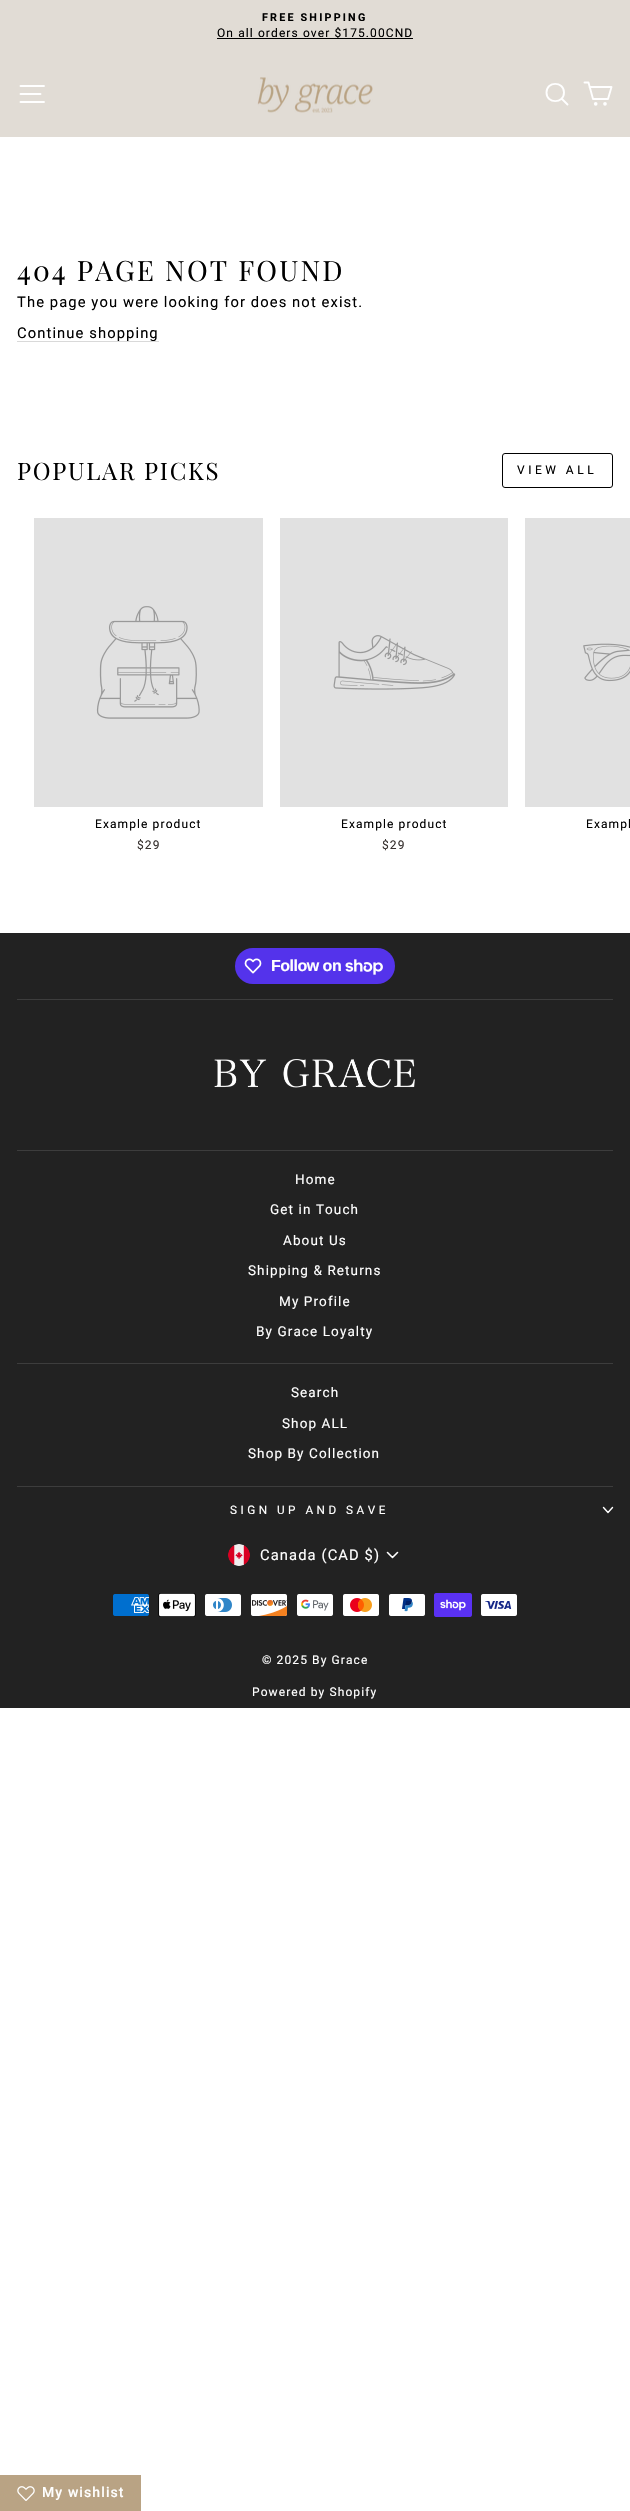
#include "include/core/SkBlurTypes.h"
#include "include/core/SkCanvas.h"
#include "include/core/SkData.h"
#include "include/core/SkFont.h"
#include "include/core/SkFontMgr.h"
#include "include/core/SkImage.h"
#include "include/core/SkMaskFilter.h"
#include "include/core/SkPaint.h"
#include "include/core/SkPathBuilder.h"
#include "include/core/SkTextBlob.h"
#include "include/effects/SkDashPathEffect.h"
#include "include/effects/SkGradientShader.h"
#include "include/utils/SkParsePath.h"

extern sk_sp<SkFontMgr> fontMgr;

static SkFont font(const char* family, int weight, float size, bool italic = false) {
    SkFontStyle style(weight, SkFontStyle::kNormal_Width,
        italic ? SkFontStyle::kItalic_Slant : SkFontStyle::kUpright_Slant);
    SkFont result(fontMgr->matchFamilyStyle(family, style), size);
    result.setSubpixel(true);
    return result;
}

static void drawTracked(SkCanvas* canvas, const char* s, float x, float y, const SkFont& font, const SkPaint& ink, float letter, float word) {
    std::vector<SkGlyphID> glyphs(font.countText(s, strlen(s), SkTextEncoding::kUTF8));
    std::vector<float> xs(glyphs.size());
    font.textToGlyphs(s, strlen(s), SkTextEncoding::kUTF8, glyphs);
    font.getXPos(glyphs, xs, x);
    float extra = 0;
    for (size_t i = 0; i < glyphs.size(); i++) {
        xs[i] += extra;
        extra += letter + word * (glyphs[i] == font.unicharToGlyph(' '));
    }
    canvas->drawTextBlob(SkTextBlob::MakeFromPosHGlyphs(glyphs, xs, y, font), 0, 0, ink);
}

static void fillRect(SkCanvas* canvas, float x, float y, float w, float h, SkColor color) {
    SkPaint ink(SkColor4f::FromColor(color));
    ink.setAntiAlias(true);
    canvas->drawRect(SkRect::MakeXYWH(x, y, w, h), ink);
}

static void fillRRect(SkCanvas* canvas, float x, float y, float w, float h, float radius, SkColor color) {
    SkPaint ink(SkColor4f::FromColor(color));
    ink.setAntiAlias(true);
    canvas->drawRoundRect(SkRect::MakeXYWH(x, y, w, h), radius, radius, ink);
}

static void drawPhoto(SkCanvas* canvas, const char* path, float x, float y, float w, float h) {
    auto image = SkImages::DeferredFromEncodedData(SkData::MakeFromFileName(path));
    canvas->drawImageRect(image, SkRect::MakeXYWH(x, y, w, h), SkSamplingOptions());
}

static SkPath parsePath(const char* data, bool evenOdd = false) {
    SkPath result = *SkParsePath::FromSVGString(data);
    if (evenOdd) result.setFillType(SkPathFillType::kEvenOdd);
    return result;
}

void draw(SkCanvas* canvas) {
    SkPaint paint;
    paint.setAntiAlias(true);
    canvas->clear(0xFFFFFFFF);
    fillRect(canvas, 0, 0, 630, 137, 0xFFE1DCD5);
    SkFont font1 = font("Roboto", 700, 10.75f);
    paint.setColor(0xFF000000);
    drawTracked(canvas, "FREE SHIPPING", 262, 21, font1, paint, 2.2f, 0);
    fillRect(canvas, 217, 38, 196, 1, 0xFF000000);
    SkFont font2 = font("Roboto", 400, 12);
    drawTracked(canvas, "On all orders over $175.00CND", 217, 37, font2, paint, 1.1f, 0);
    paint.setStroke(true);
    paint.setStrokeWidth(1.9f);
    paint.setStrokeCap(SkPaint::kRound_Cap);
    paint.setStrokeJoin(SkPaint::kRound_Join);
    paint.setColor(0xFFFFFFFF);
    canvas->drawPath(parsePath("M20.5 86H44M20.5 94H40.5M20.5 102H44"), paint);
    drawPhoto(canvas, "assets/img1.png", 257, 77, 116, 36);
    canvas->drawPath(parsePath("M564 92.5C564 104 546.5 104 546.5 92.5C546.5 81 564 81 564 92.5ZM567.5 104.5L561.5 98.5"), paint);
    canvas->drawPath(parsePath("M589.5 87H611.5L608 99H593L588.5 82.5H584.5"), paint);
    paint.setStrokeCap(SkPaint::kButt_Cap);
    paint.setStrokeJoin(SkPaint::kMiter_Join);
    canvas->drawCircle(595.7f, 103.8f, 0.9f, paint);
    canvas->drawCircle(605, 103.8f, 0.9f, paint);
    SkFont font3 = font("Playfair Display", 400, 28);
    paint.setStroke(false);
    paint.setColor(0xFF000000);
    drawTracked(canvas, "404 PAGE NOT FOUND", 17, 281, font3, paint, 2.1f, 0);
    SkFont font4 = font("Roboto", 400, 14.75f);
    drawTracked(canvas, "The page you were looking for does not exist.", 17, 307, font4, paint, 1.1f, 0);
    fillRect(canvas, 17, 341, 142, 1, 0xFFD9D9D9);
    drawTracked(canvas, "Continue shopping", 17, 338, font4, paint, 1.1f, 0);
    SkFont font5 = font("Playfair Display", 400, 24);
    drawTracked(canvas, "POPULAR PICKS", 17, 480, font5, paint, 1.75f, 0);
    paint.setStroke(true);
    paint.setStrokeWidth(1);
    canvas->drawRoundRect(SkRect::MakeXYWH(502.5f, 453.5f, 110, 34), 2.5f, 2.5f, paint);
    paint.setStroke(false);
    drawTracked(canvas, "VIEW ALL", 517, 474, font2, paint, 3.5f, 0);
    fillRect(canvas, 34, 518, 229, 289, 0xFFE1E1E1);
    drawPhoto(canvas, "assets/img2.png", 96, 606, 104, 113);
    drawTracked(canvas, "Example product", 95, 828, font2, paint, 1.1f, 0);
    paint.setColor(0xFF383230);
    drawTracked(canvas, "$29", 137, 849, font2, paint, 1.1f, 0);
    fillRect(canvas, 280, 518, 228, 289, 0xFFE1E1E1);
    drawPhoto(canvas, "assets/img3.png", 333, 635, 123, 55);
    paint.setColor(0xFF000000);
    drawTracked(canvas, "Example product", 341, 828, font2, paint, 1.1f, 0);
    paint.setColor(0xFF383230);
    drawTracked(canvas, "$29", 382, 849, font2, paint, 1.1f, 0);
    fillRect(canvas, 525, 518, 105, 289, 0xFFE1E1E1);
    drawPhoto(canvas, "assets/img4.png", 583, 643, 47, 39);
    paint.setColor(0xFF000000);
    drawTracked(canvas, "Exampl", 586, 828, font2, paint, 1.1f, 0);
    fillRect(canvas, 0, 933, 630, 775, 0xFF222222);
    fillRRect(canvas, 235, 948, 160, 36, 18, 0xFF5433EB);
    drawPhoto(canvas, "assets/img5.png", 244, 958, 18, 16);
    SkFont font6 = font("Liberation Sans", 700, 16);
    paint.setColor(0xFFFFFFFF);
    drawTracked(canvas, "Follow on", 271, 971, font6, paint, -0.5f, 0);
    drawPhoto(canvas, "assets/img6.png", 345, 959, 38, 16);
    fillRect(canvas, 17, 999, 596, 1, 0xFF3D3D3D);
    drawPhoto(canvas, "assets/img7.png", 214, 1059, 201, 29);
    fillRect(canvas, 17, 1150, 596, 1, 0xFF3D3D3D);
    SkFont font7 = font("Roboto", 400, 13.5f);
    drawTracked(canvas, "Home", 295, 1184, font7, paint, 1.1f, 0);
    drawTracked(canvas, "Get in Touch", 270, 1214, font7, paint, 1.1f, 0);
    drawTracked(canvas, "About Us", 283, 1245, font7, paint, 1.1f, 0);
    drawTracked(canvas, "Shipping & Returns", 248, 1275, font7, paint, 1.1f, 0);
    drawTracked(canvas, "My Profile", 279, 1306, font7, paint, 1.1f, 0);
    drawTracked(canvas, "By Grace Loyalty", 256, 1336, font7, paint, 1.1f, 0);
    fillRect(canvas, 17, 1363, 596, 1, 0xFF3D3D3D);
    drawTracked(canvas, "Search", 291, 1397, font7, paint, 1.1f, 0);
    drawTracked(canvas, "Shop ALL", 282, 1428, font7, paint, 1.1f, 0);
    drawTracked(canvas, "Shop By Collection", 248, 1458, font7, paint, 1.1f, 0);
    fillRect(canvas, 17, 1486, 596, 1, 0xFF3D3D3D);
    SkFont font8 = font("Roboto", 400, 11.75f);
    drawTracked(canvas, "SIGN UP AND SAVE", 230, 1514, font8, paint, 3.5f, 0);
    paint.setStroke(true);
    paint.setStrokeWidth(1.4f);
    paint.setStrokeCap(SkPaint::kRound_Cap);
    paint.setStrokeJoin(SkPaint::kRound_Join);
    canvas->drawPath(parsePath("M603.5 1507.5L608 1512.5L612.5 1507.5"), paint);
    drawPhoto(canvas, "assets/img8.png", 228, 1544, 22, 22);
    paint.setStroke(false);
    drawTracked(canvas, "Canada (CAD $)", 260, 1560, font4, paint, 1.1f, 0);
    paint.setStroke(true);
    paint.setStrokeWidth(1.6f);
    canvas->drawPath(parsePath("M387.5 1552.5L392.5 1557.5L397.5 1552.5"), paint);
    drawPhoto(canvas, "assets/img9.png", 113, 1594, 36, 22);
    drawPhoto(canvas, "assets/img10.png", 158, 1593, 38, 24);
    drawPhoto(canvas, "assets/img11.png", 205, 1594, 36, 22);
    drawPhoto(canvas, "assets/img12.png", 251, 1594, 36, 22);
    drawPhoto(canvas, "assets/img13.png", 297, 1594, 36, 22);
    drawPhoto(canvas, "assets/img14.png", 343, 1594, 36, 22);
    drawPhoto(canvas, "assets/img15.png", 389, 1594, 36, 22);
    drawPhoto(canvas, "assets/img16.png", 434, 1593, 38, 24);
    drawPhoto(canvas, "assets/img17.png", 481, 1594, 36, 22);
    paint.setStroke(false);
    drawTracked(canvas, "© 2025 By Grace", 262, 1664, font2, paint, 1.1f, 0);
    drawTracked(canvas, "Powered by Shopify", 252, 1696, font2, paint, 1.1f, 0);
    fillRect(canvas, 0, 2475, 141, 36, 0xFFB9A384);
    drawPhoto(canvas, "assets/img18.png", 17, 2486, 18, 15);
    SkFont font9 = font("Roboto", 500, 14);
    drawTracked(canvas, "My wishlist", 42, 2497, font9, paint, 1.1f, 0);
}
